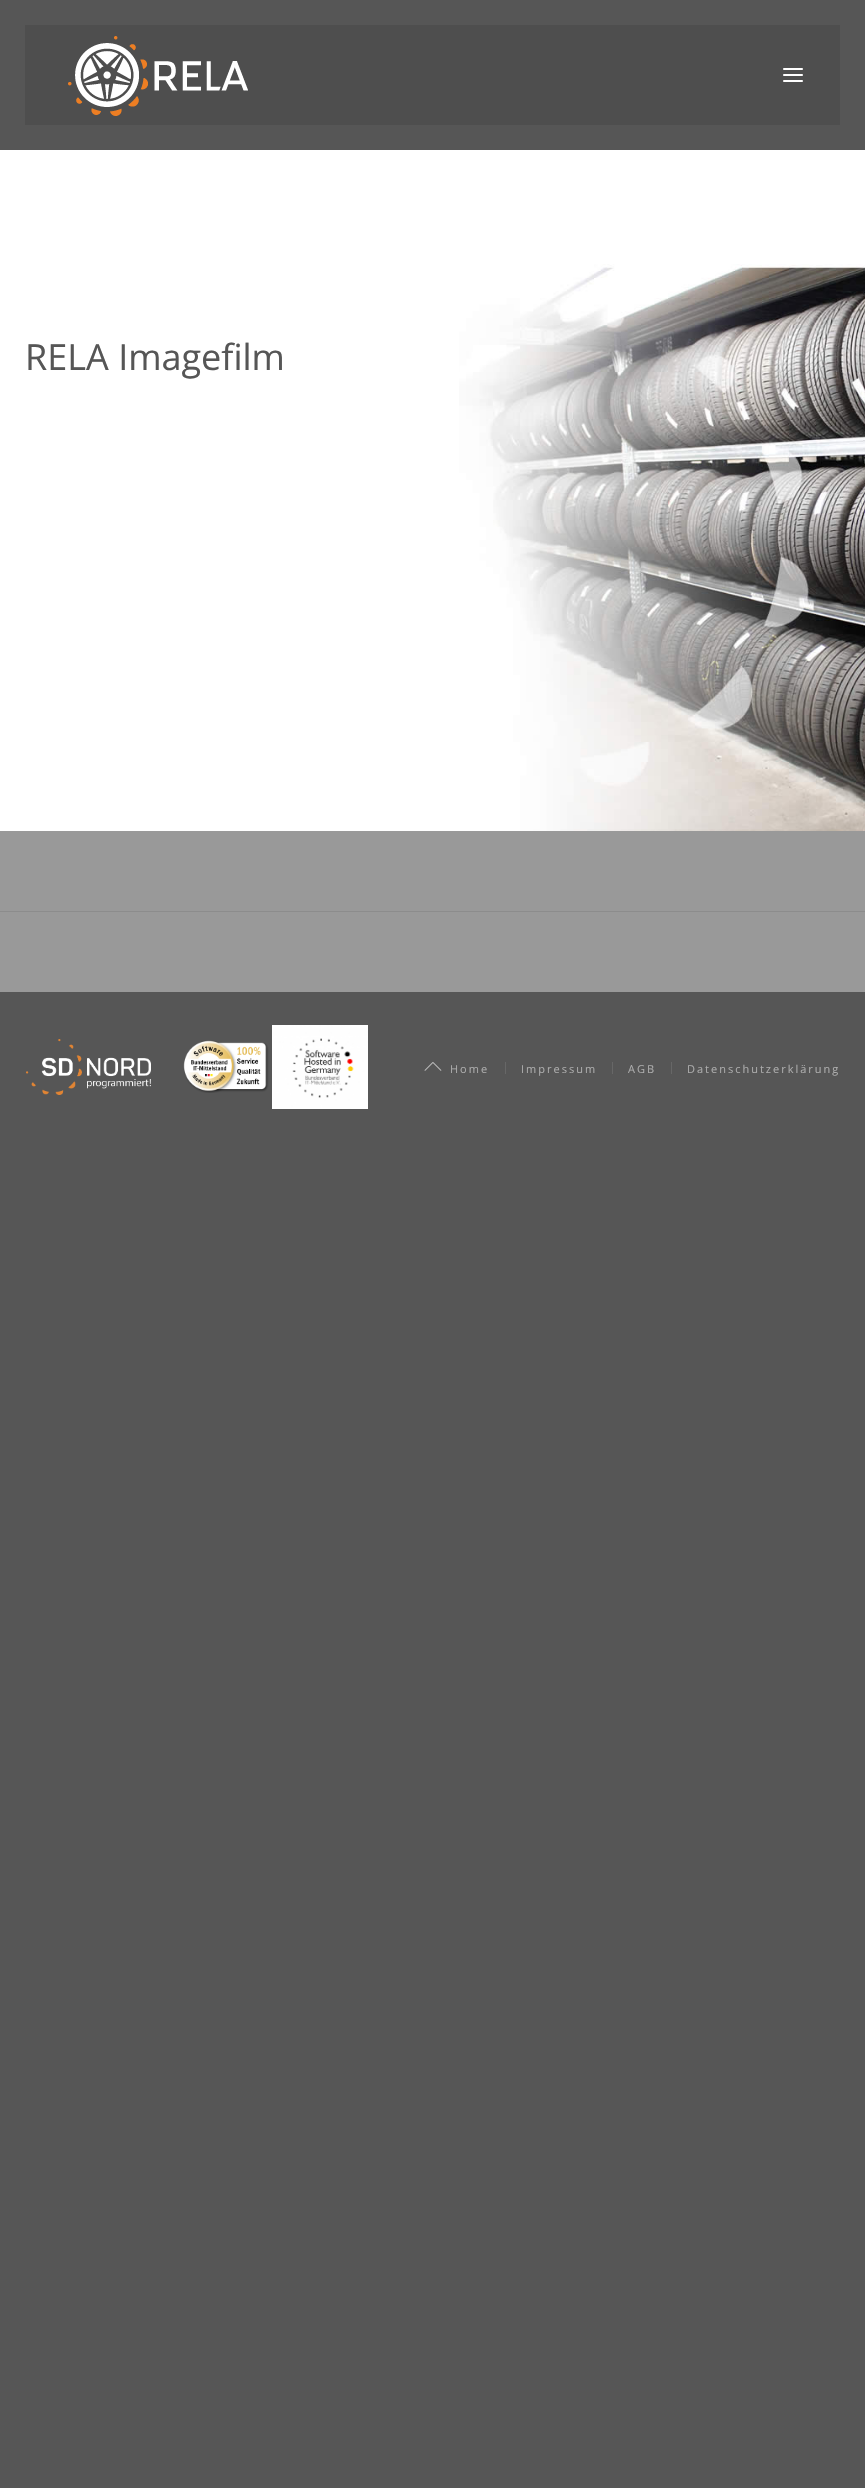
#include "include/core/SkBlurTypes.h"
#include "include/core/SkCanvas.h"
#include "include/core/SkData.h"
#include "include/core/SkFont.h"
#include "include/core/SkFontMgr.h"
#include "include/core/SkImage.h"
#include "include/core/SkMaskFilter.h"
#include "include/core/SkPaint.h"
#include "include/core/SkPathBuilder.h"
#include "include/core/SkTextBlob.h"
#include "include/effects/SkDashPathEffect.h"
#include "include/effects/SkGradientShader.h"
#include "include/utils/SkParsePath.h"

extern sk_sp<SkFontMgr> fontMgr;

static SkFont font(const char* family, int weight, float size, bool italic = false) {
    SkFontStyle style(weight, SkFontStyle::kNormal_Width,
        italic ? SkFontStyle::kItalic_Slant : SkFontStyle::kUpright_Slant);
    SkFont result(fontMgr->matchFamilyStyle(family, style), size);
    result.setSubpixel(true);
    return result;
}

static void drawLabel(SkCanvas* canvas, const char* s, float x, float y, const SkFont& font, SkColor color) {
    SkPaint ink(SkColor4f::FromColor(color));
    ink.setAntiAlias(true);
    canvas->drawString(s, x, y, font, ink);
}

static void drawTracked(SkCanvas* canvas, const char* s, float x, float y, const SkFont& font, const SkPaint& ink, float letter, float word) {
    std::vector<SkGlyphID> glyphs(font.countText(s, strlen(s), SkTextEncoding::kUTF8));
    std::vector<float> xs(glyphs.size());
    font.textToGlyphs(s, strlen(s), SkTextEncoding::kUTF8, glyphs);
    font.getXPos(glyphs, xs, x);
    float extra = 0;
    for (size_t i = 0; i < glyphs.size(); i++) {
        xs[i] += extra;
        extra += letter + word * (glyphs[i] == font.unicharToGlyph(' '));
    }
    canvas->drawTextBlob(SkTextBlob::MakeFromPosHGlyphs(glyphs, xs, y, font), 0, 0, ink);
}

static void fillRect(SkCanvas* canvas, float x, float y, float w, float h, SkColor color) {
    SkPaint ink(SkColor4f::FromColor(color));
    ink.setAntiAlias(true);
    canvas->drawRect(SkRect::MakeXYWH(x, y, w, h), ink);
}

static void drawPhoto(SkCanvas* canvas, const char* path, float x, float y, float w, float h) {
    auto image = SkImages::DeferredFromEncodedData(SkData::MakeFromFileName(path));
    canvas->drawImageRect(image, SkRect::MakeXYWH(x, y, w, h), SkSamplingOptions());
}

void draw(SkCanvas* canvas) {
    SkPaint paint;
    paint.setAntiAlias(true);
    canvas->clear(0xFF565656);
    fillRect(canvas, 25, 25, 815, 100, 0xFF4E4E4E);
    drawPhoto(canvas, "assets/img1.png", 68, 36, 180, 80);
    drawPhoto(canvas, "assets/img2.png", 783, 68, 20, 14);
    fillRect(canvas, 0, 150, 865, 681, 0xFFFFFFFF);
    drawPhoto(canvas, "assets/img3.png", 459, 264, 406, 567);
    SkFont font1 = font("Open Sans", 400, 36);
    drawLabel(canvas, "RELA Imagefilm", 25, 370, font1, 0xFF565656);
    fillRect(canvas, 0, 831, 865, 80, 0xFF999999);
    fillRect(canvas, 0, 912, 865, 80, 0xFF999999);
    fillRect(canvas, 0, 911, 865, 1, 0xFF8C8C8C);
    drawPhoto(canvas, "assets/img4.png", 26, 1039, 125, 56);
    drawPhoto(canvas, "assets/img5.png", 183, 1040, 86, 53);
    drawPhoto(canvas, "assets/img6.png", 272, 1025, 96, 84);
    drawPhoto(canvas, "assets/img7.png", 424, 1062, 18, 9);
    SkFont font2 = font("Open Sans", 400, 11);
    paint.setColor(0xFFABABAB);
    drawTracked(canvas, "Home", 450, 1073, font2, paint, 2, 0);
    fillRect(canvas, 505, 1062, 1, 12, 0xFF676767);
    drawTracked(canvas, "Impressum", 521, 1073, font2, paint, 2, 0);
    fillRect(canvas, 612, 1062, 1, 12, 0xFF676767);
    drawTracked(canvas, "AGB", 628, 1073, font2, paint, 2, 0);
    fillRect(canvas, 671, 1062, 1, 12, 0xFF676767);
    drawTracked(canvas, "Datenschutzerklärung", 687, 1073, font2, paint, 2, 0);
}
